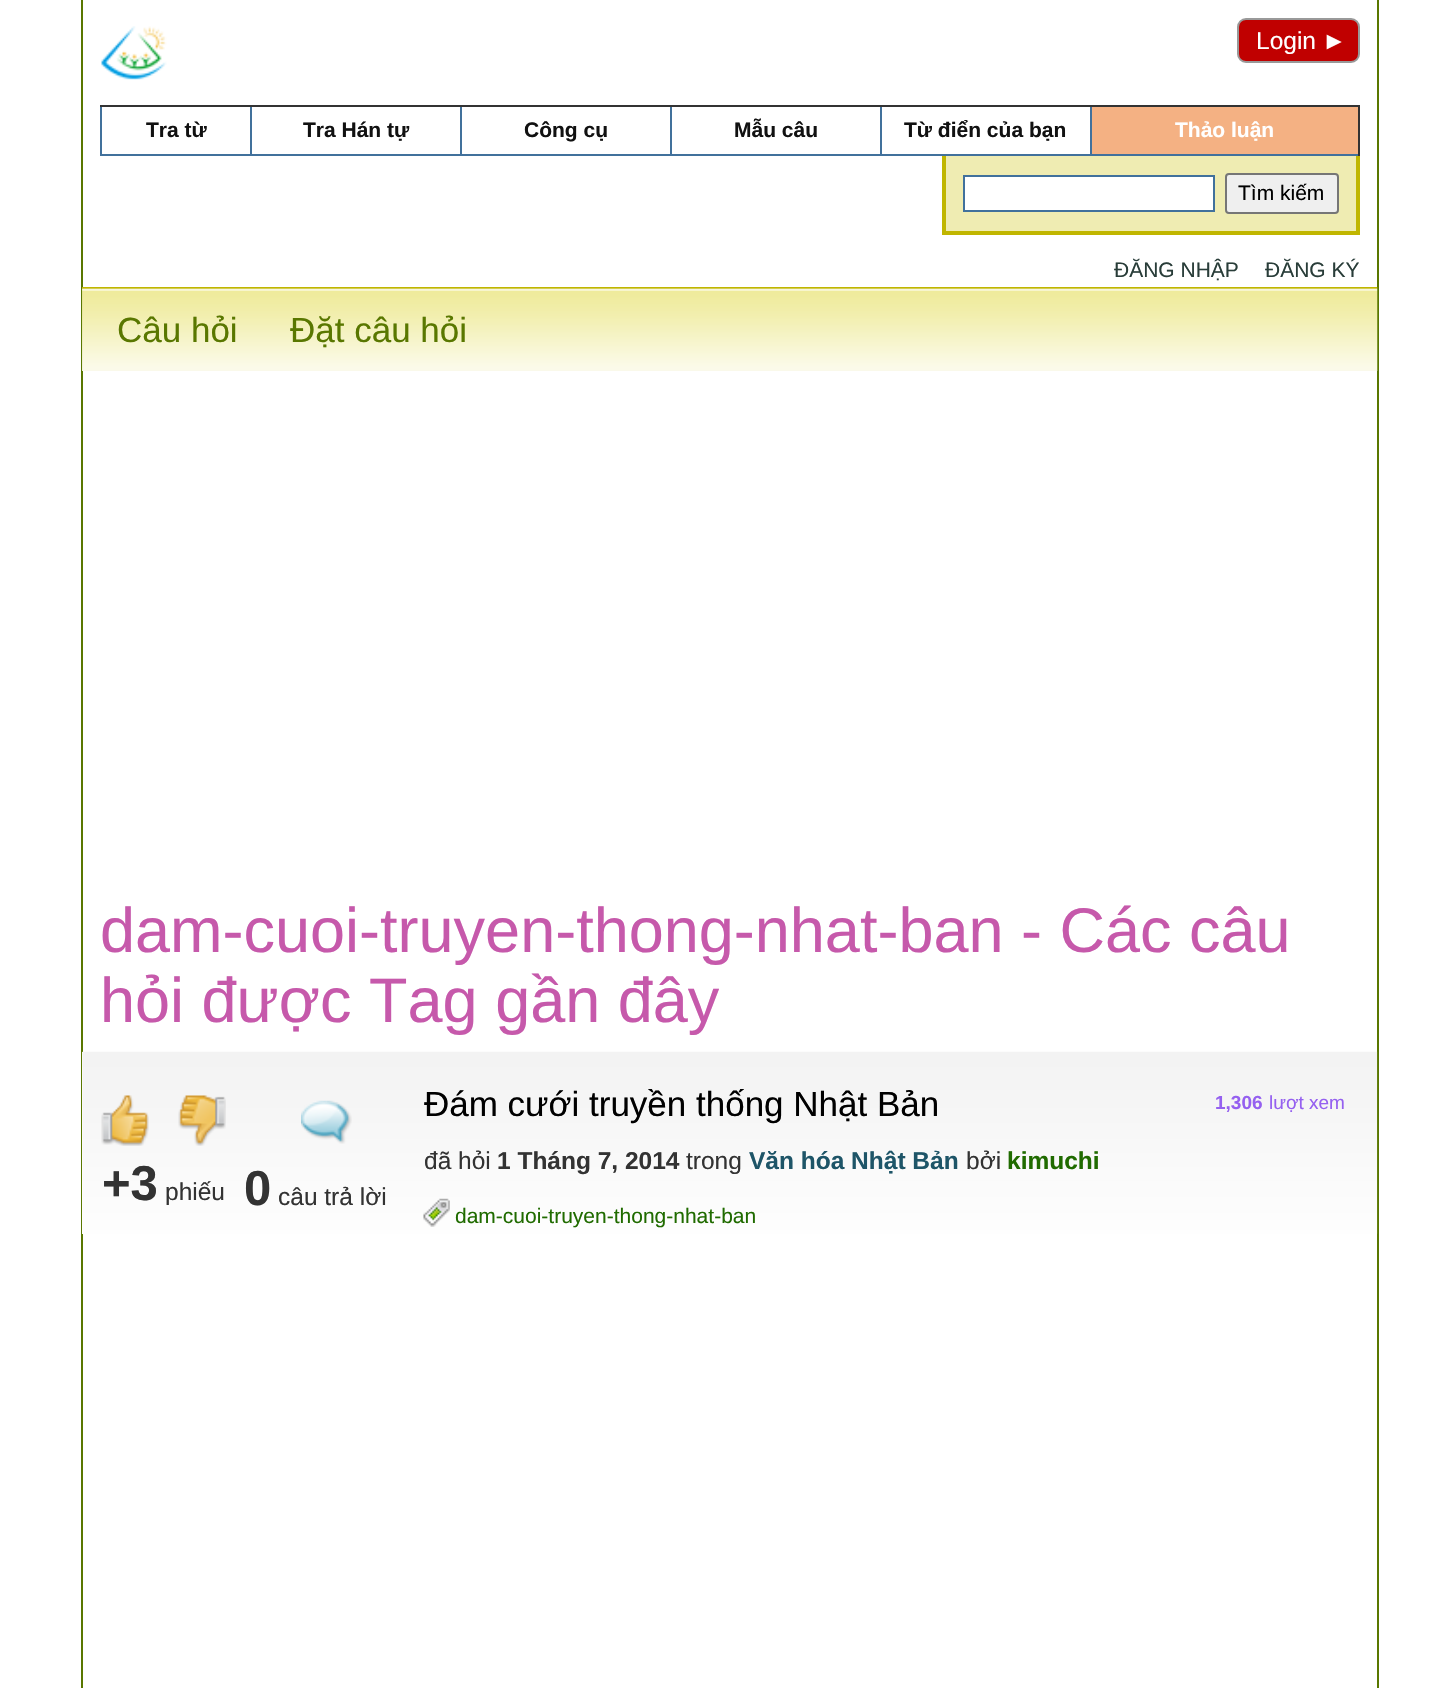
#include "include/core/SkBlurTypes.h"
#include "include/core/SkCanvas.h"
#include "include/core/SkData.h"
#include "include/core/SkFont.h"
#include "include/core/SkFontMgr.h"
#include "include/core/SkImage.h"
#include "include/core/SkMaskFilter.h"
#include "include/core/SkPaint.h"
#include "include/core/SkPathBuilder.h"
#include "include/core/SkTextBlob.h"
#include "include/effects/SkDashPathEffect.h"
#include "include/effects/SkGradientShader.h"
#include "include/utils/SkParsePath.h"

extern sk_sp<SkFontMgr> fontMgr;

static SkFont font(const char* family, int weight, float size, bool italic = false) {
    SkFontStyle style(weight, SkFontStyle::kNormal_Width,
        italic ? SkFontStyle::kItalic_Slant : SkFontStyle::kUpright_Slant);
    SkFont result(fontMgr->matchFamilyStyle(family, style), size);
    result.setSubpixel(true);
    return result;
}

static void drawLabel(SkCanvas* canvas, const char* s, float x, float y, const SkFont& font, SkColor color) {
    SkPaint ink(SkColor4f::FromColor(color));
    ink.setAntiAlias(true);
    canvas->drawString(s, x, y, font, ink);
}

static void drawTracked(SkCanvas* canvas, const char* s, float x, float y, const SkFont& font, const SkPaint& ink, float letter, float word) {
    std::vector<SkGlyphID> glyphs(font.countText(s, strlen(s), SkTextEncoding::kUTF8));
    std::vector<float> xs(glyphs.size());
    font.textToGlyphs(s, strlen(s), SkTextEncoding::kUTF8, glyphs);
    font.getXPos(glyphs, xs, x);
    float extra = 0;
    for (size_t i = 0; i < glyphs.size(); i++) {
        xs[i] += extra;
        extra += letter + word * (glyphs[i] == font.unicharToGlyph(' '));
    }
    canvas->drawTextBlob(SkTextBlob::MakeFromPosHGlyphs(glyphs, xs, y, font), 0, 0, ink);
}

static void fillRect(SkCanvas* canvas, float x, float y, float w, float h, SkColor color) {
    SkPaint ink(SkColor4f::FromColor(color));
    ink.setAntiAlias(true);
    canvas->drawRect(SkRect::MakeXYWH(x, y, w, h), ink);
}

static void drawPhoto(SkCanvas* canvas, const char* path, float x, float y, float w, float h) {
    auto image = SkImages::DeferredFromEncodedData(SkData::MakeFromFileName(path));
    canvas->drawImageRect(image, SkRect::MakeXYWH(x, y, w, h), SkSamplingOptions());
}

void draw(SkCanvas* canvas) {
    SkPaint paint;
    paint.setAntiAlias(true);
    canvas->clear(0xFFFFFFFF);
    paint.setStroke(true);
    paint.setStrokeWidth(2);
    paint.setColor(0xFF597700);
    canvas->drawRect(SkRect::MakeXYWH(82, -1, 1296, 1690), paint);
    drawPhoto(canvas, "assets/img1.png", 101, 26, 66, 54);
    paint.setStroke(false);
    paint.setColor(0xFFC00000);
    canvas->drawRoundRect(SkRect::MakeXYWH(1238, 19, 121, 43), 8, 8, paint);
    paint.setStroke(true);
    paint.setColor(0xFF999999);
    canvas->drawRoundRect(SkRect::MakeXYWH(1238, 19, 121, 43), 8, 8, paint);
    SkFont font1 = font("Liberation Sans", 400, 24.5f);
    drawLabel(canvas, "Login", 1256, 49, font1, 0xFFFFFFFF);
    paint.setStroke(false);
    paint.setColor(0xFFFFFFFF);
    drawTracked(canvas, "►", 1322, 49, font1, paint, -12, 0);
    fillRect(canvas, 100, 105, 1260, 2, 0xFF333333);
    fillRect(canvas, 1358, 105, 2, 51, 0xFF333333);
    fillRect(canvas, 100, 154, 1258, 2, 0xFF41719C);
    fillRect(canvas, 100, 107, 2, 49, 0xFF41719C);
    SkFont font2 = font("Liberation Sans", 700, 21);
    drawLabel(canvas, "Tra từ", 146, 137, font2, 0xFF111111);
    fillRect(canvas, 250, 107, 2, 49, 0xFF41719C);
    drawLabel(canvas, "Tra Hán tự", 303, 137, font2, 0xFF111111);
    fillRect(canvas, 460, 107, 2, 49, 0xFF41719C);
    drawLabel(canvas, "Công cụ", 524, 137, font2, 0xFF111111);
    fillRect(canvas, 670, 107, 2, 49, 0xFF41719C);
    drawLabel(canvas, "Mẫu câu", 734, 137, font2, 0xFF111111);
    fillRect(canvas, 880, 107, 2, 49, 0xFF41719C);
    drawLabel(canvas, "Từ điển của bạn", 904, 137, font2, 0xFF111111);
    fillRect(canvas, 1092, 107, 266, 47, 0xFFF4B183);
    fillRect(canvas, 1090, 107, 2, 49, 0xFF41719C);
    drawLabel(canvas, "Thảo luận", 1175, 137, font2, 0xFFFFFFFF);
    fillRect(canvas, 946, 156, 410, 75, 0xFFEFECB2);
    fillRect(canvas, 1356, 156, 4, 79, 0xFFC0B600);
    fillRect(canvas, 942, 231, 418, 4, 0xFFC0B600);
    fillRect(canvas, 942, 156, 4, 79, 0xFFC0B600);
    canvas->drawRect(SkRect::MakeXYWH(964, 176, 250, 35), paint);
    paint.setStroke(true);
    paint.setColor(0xFF41719C);
    canvas->drawRect(SkRect::MakeXYWH(964, 176, 250, 35), paint);
    paint.setStroke(false);
    paint.setColor(0xFFEFEFEF);
    canvas->drawRoundRect(SkRect::MakeXYWH(1226, 174, 112, 39), 3, 3, paint);
    paint.setStroke(true);
    paint.setColor(0xFF767676);
    canvas->drawRoundRect(SkRect::MakeXYWH(1226, 174, 112, 39), 3, 3, paint);
    SkFont font3 = font("Liberation Sans", 400, 21);
    drawLabel(canvas, "Tìm kiếm", 1238, 200, font3, 0xFF000000);
    drawLabel(canvas, "ĐĂNG NHẬP", 1114, 277, font3, 0xFF293D39);
    drawLabel(canvas, "ĐĂNG KÝ", 1265, 277, font3, 0xFF293D39);
    drawPhoto(canvas, "assets/img2.png", 82, 287, 1296, 84);
    drawPhoto(canvas, "assets/img3.png", 82, 287, 174, 84);
    drawPhoto(canvas, "assets/img4.png", 100, 287, 156, 84);
    SkFont font4 = font("Liberation Sans", 400, 35);
    drawLabel(canvas, "Câu hỏi", 117, 342, font4, 0xFF597700);
    drawPhoto(canvas, "assets/img5.png", 255, 287, 230, 84);
    drawPhoto(canvas, "assets/img6.png", 273, 287, 212, 84);
    drawLabel(canvas, "Đặt câu hỏi", 290, 342, font4, 0xFF597700);
    SkFont font5 = font("Liberation Sans", 400, 63);
    drawLabel(canvas, "dam-cuoi-truyen-thong-nhat-ban - Các câu", 100, 952, font5, 0xFFC659AB);
    drawLabel(canvas, "hỏi được Tag gần đây", 100, 1022, font5, 0xFFC659AB);
    fillRect(canvas, 82, 1052, 1, 182, 0xFFFFFFFF);
    drawPhoto(canvas, "assets/img7.png", 82, 1051, 1296, 183);
    drawPhoto(canvas, "assets/img8.png", 101, 1095, 48, 51);
    drawPhoto(canvas, "assets/img9.png", 178, 1095, 48, 51);
    SkFont font6 = font("Liberation Sans", 700, 49);
    drawLabel(canvas, "+3", 102, 1200, font6, 0xFF333333);
    drawLabel(canvas, "phiếu", 165, 1200, font1, 0xFF333333);
    drawPhoto(canvas, "assets/img10.png", 301, 1100, 51, 44);
    drawLabel(canvas, "0", 244, 1205, font6, 0xFF333333);
    drawLabel(canvas, "câu trả lời", 278, 1205, font1, 0xFF333333);
    drawLabel(canvas, "Đám cưới truyền thống Nhật Bản", 424, 1116, font4, 0xFF000000);
    SkFont font7 = font("Liberation Sans", 700, 19);
    drawLabel(canvas, "1,306", 1215, 1109, font7, 0xFF9560F0);
    SkFont font8 = font("Liberation Sans", 400, 19);
    drawLabel(canvas, "lượt xem", 1269, 1109, font8, 0xFF9560F0);
    drawLabel(canvas, "đã hỏi", 424, 1169, font1, 0xFF333333);
    SkFont font9 = font("Liberation Sans", 700, 24.5f);
    drawLabel(canvas, "1 Tháng 7, 2014", 497, 1169, font9, 0xFF333333);
    drawLabel(canvas, "trong", 686, 1169, font1, 0xFF333333);
    drawLabel(canvas, "Văn hóa Nhật Bản", 749, 1169, font9, 0xFF1E5568);
    drawLabel(canvas, "bởi", 966, 1169, font1, 0xFF333333);
    drawLabel(canvas, "kimuchi", 1007, 1169, font9, 0xFF206B00);
    drawPhoto(canvas, "assets/img11.png", 423, 1198, 27, 29);
    drawLabel(canvas, "dam-cuoi-truyen-thong-nhat-ban", 455, 1223, font3, 0xFF206B00);
}
